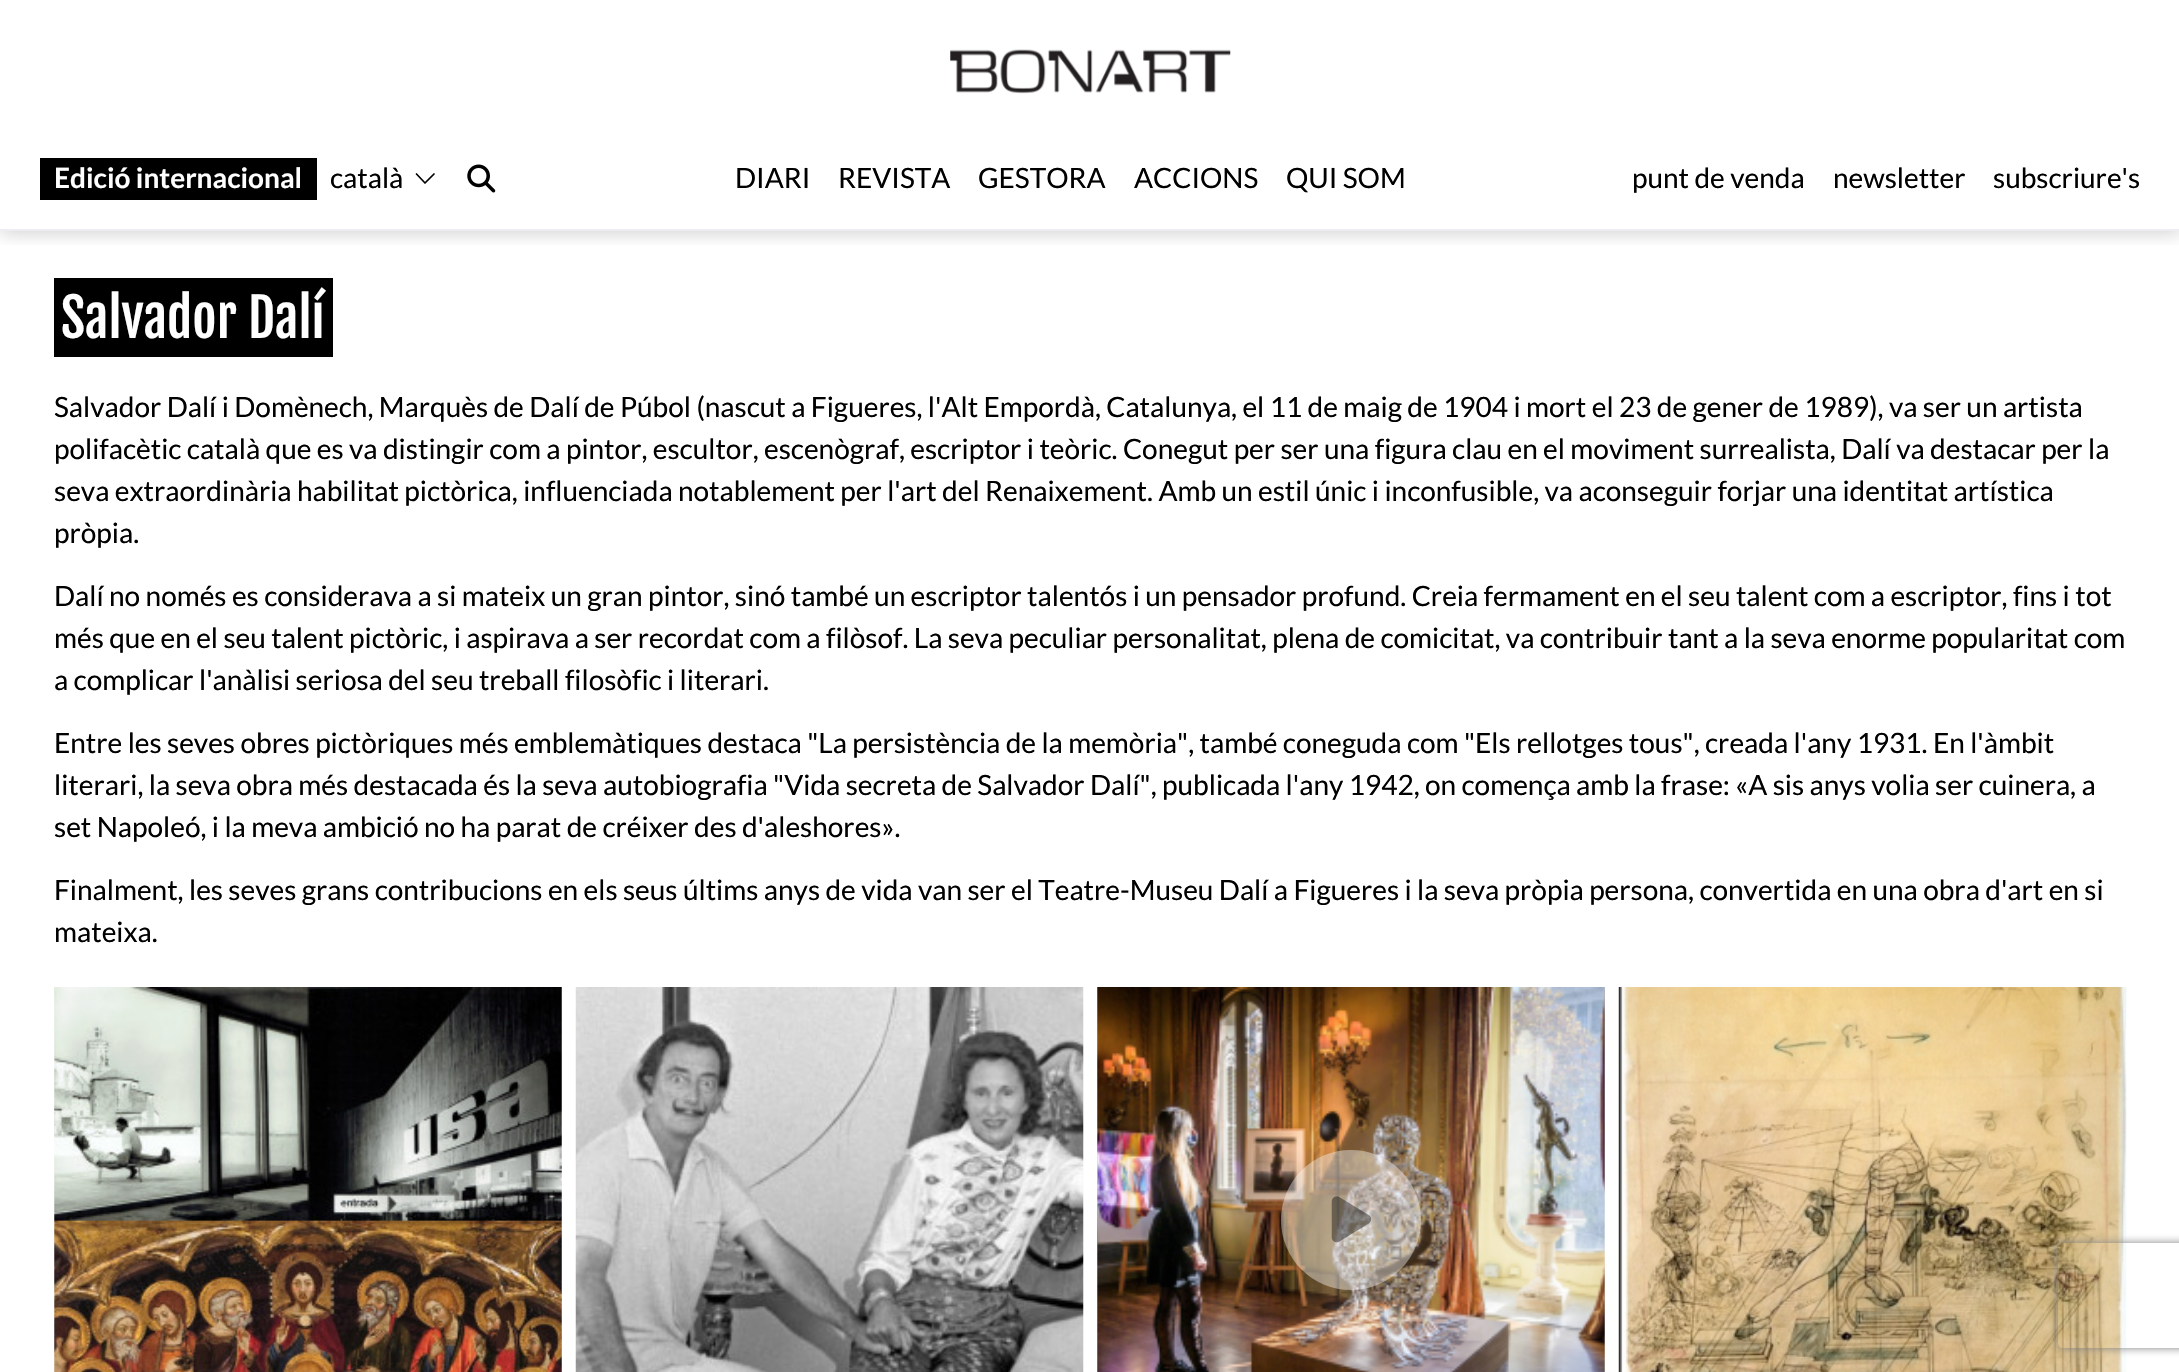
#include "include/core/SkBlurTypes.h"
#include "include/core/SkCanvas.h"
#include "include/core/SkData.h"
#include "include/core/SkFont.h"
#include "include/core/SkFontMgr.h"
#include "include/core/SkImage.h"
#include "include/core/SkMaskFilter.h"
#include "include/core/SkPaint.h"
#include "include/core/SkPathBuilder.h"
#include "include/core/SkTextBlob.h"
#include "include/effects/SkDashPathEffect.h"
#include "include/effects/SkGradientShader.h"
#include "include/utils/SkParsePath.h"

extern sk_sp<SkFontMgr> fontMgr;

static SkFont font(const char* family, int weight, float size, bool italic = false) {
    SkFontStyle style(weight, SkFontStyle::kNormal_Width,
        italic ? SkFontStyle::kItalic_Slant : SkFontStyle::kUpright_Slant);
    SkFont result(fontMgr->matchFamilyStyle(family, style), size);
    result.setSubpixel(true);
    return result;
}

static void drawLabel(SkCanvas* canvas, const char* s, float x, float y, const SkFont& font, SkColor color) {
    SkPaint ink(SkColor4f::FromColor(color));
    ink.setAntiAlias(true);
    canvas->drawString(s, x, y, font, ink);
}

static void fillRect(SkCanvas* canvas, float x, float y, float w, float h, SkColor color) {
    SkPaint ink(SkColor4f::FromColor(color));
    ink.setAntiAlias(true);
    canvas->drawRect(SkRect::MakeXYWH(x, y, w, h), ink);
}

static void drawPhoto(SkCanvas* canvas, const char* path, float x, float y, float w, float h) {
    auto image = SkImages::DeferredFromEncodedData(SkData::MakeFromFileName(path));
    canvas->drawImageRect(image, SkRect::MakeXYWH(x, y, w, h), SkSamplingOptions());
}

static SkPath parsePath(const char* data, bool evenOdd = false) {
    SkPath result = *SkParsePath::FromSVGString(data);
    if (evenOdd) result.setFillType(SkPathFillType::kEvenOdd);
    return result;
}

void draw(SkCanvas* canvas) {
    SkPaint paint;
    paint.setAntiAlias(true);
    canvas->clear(0xFFFFFFFF);
    canvas->save();
    canvas->clipRect(SkRect::MakeXYWH(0, 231, 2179, 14));
    paint.setColor(0x330F0F0F);
    paint.setMaskFilter(SkMaskFilter::MakeBlur(kNormal_SkBlurStyle, 9));
    canvas->drawRect(SkRect::MakeXYWH(0, 2, 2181, 231), paint);
    paint.setMaskFilter(nullptr);
    canvas->restore();
    fillRect(canvas, 0, 229, 2179, 2, 0xFFEEEDF3);
    drawPhoto(canvas, "assets/img1.png", 950, 49, 281, 45);
    fillRect(canvas, 40, 158, 277, 42, 0xFF000000);
    SkFont font1 = font("Lato", 700, 28);
    drawLabel(canvas, "Edició internacional", 54, 188, font1, 0xFFFFFFFF);
    SkFont font2 = font("Lato", 400, 28);
    drawLabel(canvas, "català", 330, 188, font2, 0xFF000000);
    paint.setStroke(true);
    paint.setStrokeWidth(1.7f);
    paint.setStrokeCap(SkPaint::kRound_Cap);
    paint.setStrokeJoin(SkPaint::kRound_Join);
    paint.setColor(0xFF000000);
    canvas->drawPath(parsePath("M434 174L425 183L416.5 174"), paint);
    drawPhoto(canvas, "assets/img2.png", 467, 164, 29, 29);
    drawLabel(canvas, "DIARI", 735, 188, font2, 0xFF000000);
    drawLabel(canvas, "REVISTA", 838, 188, font2, 0xFF000000);
    drawLabel(canvas, "GESTORA", 978, 188, font2, 0xFF000000);
    drawLabel(canvas, "ACCIONS", 1134, 188, font2, 0xFF000000);
    drawLabel(canvas, "QUI SOM", 1286, 188, font2, 0xFF000000);
    drawLabel(canvas, "punt de venda", 1632, 188, font2, 0xFF000000);
    drawLabel(canvas, "newsletter", 1833, 188, font2, 0xFF000000);
    drawLabel(canvas, "subscriure's", 1993, 188, font2, 0xFF000000);
    paint.setStroke(false);
    canvas->drawPath(parsePath("M68 278H326V357H333V278Z"), paint);
    fillRect(canvas, 61, 278, 265, 79, 0xFF000000);
    SkFont font3 = font("Fjalla One", 400, 52.5f);
    drawLabel(canvas, "Salvador Dalí", 61, 338, font3, 0xFFFFFFFF);
    canvas->drawPath(parsePath("M54 278V357H61V278H319Z"), paint);
    drawLabel(canvas, "Salvador Dalí i Domènech, Marquès de Dalí de Púbol (nascut a Figueres, l'Alt Empordà, Catalunya, el 11 de maig de 1904 i mort el 23 de gener de 1989), va ser un artista", 54, 417, font2, 0xFF000000);
    drawLabel(canvas, "polifacètic català que es va distingir com a pintor, escultor, escenògraf, escriptor i teòric. Conegut per ser una figura clau en el moviment surrealista, Dalí va destacar per la", 54, 459, font2, 0xFF000000);
    drawLabel(canvas, "seva extraordinària habilitat pictòrica, influenciada notablement per l'art del Renaixement. Amb un estil únic i inconfusible, va aconseguir forjar una identitat artística", 54, 501, font2, 0xFF000000);
    drawLabel(canvas, "pròpia.", 54, 543, font2, 0xFF000000);
    drawLabel(canvas, "Dalí no només es considerava a si mateix un gran pintor, sinó també un escriptor talentós i un pensador profund. Creia fermament en el seu talent com a escriptor, fins i tot", 54, 606, font2, 0xFF000000);
    drawLabel(canvas, "més que en el seu talent pictòric, i aspirava a ser recordat com a filòsof. La seva peculiar personalitat, plena de comicitat, va contribuir tant a la seva enorme popularitat com", 54, 648, font2, 0xFF000000);
    drawLabel(canvas, "a complicar l'anàlisi seriosa del seu treball filosòfic i literari.", 54, 690, font2, 0xFF000000);
    drawLabel(canvas, "Entre les seves obres pictòriques més emblemàtiques destaca \"La persistència de la memòria\", també coneguda com \"Els rellotges tous\", creada l'any 1931. En l'àmbit", 54, 753, font2, 0xFF000000);
    drawLabel(canvas, "literari, la seva obra més destacada és la seva autobiografia \"Vida secreta de Salvador Dalí\", publicada l'any 1942, on comença amb la frase: «A sis anys volia ser cuinera, a", 54, 795, font2, 0xFF000000);
    drawLabel(canvas, "set Napoleó, i la meva ambició no ha parat de créixer des d'aleshores».", 54, 837, font2, 0xFF000000);
    drawLabel(canvas, "Finalment, les seves grans contribucions en els seus últims anys de vida van ser el Teatre-Museu Dalí a Figueres i la seva pròpia persona, convertida en una obra d'art en si", 54, 900, font2, 0xFF000000);
    drawLabel(canvas, "mateixa.", 54, 942, font2, 0xFF000000);
    drawPhoto(canvas, "assets/img3.png", 54, 987, 508, 385);
    drawPhoto(canvas, "assets/img4.png", 575, 987, 509, 385);
    drawPhoto(canvas, "assets/img5.png", 1097, 987, 508, 385);
    paint.setColor(0x66FFFFFF);
    canvas->drawCircle(1351, 1220, 70, paint);
    drawPhoto(canvas, "assets/img6.png", 1331, 1196, 41, 47);
    drawPhoto(canvas, "assets/img7.png", 1618, 987, 509, 385);
    canvas->save();
    canvas->clipPath(parsePath("M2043 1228H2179V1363H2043ZM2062 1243H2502C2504 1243 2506 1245 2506 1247V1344C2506 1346 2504 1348 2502 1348H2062C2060 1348 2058 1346 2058 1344V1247C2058 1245 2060 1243 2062 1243Z", true), true);
    paint.setColor(0xFF808080);
    paint.setMaskFilter(SkMaskFilter::MakeBlur(kNormal_SkBlurStyle, 4.5f));
    canvas->drawRoundRect(SkRect::MakeXYWH(2058, 1243, 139, 105), 4, 4, paint);
    paint.setMaskFilter(nullptr);
    canvas->restore();
}
